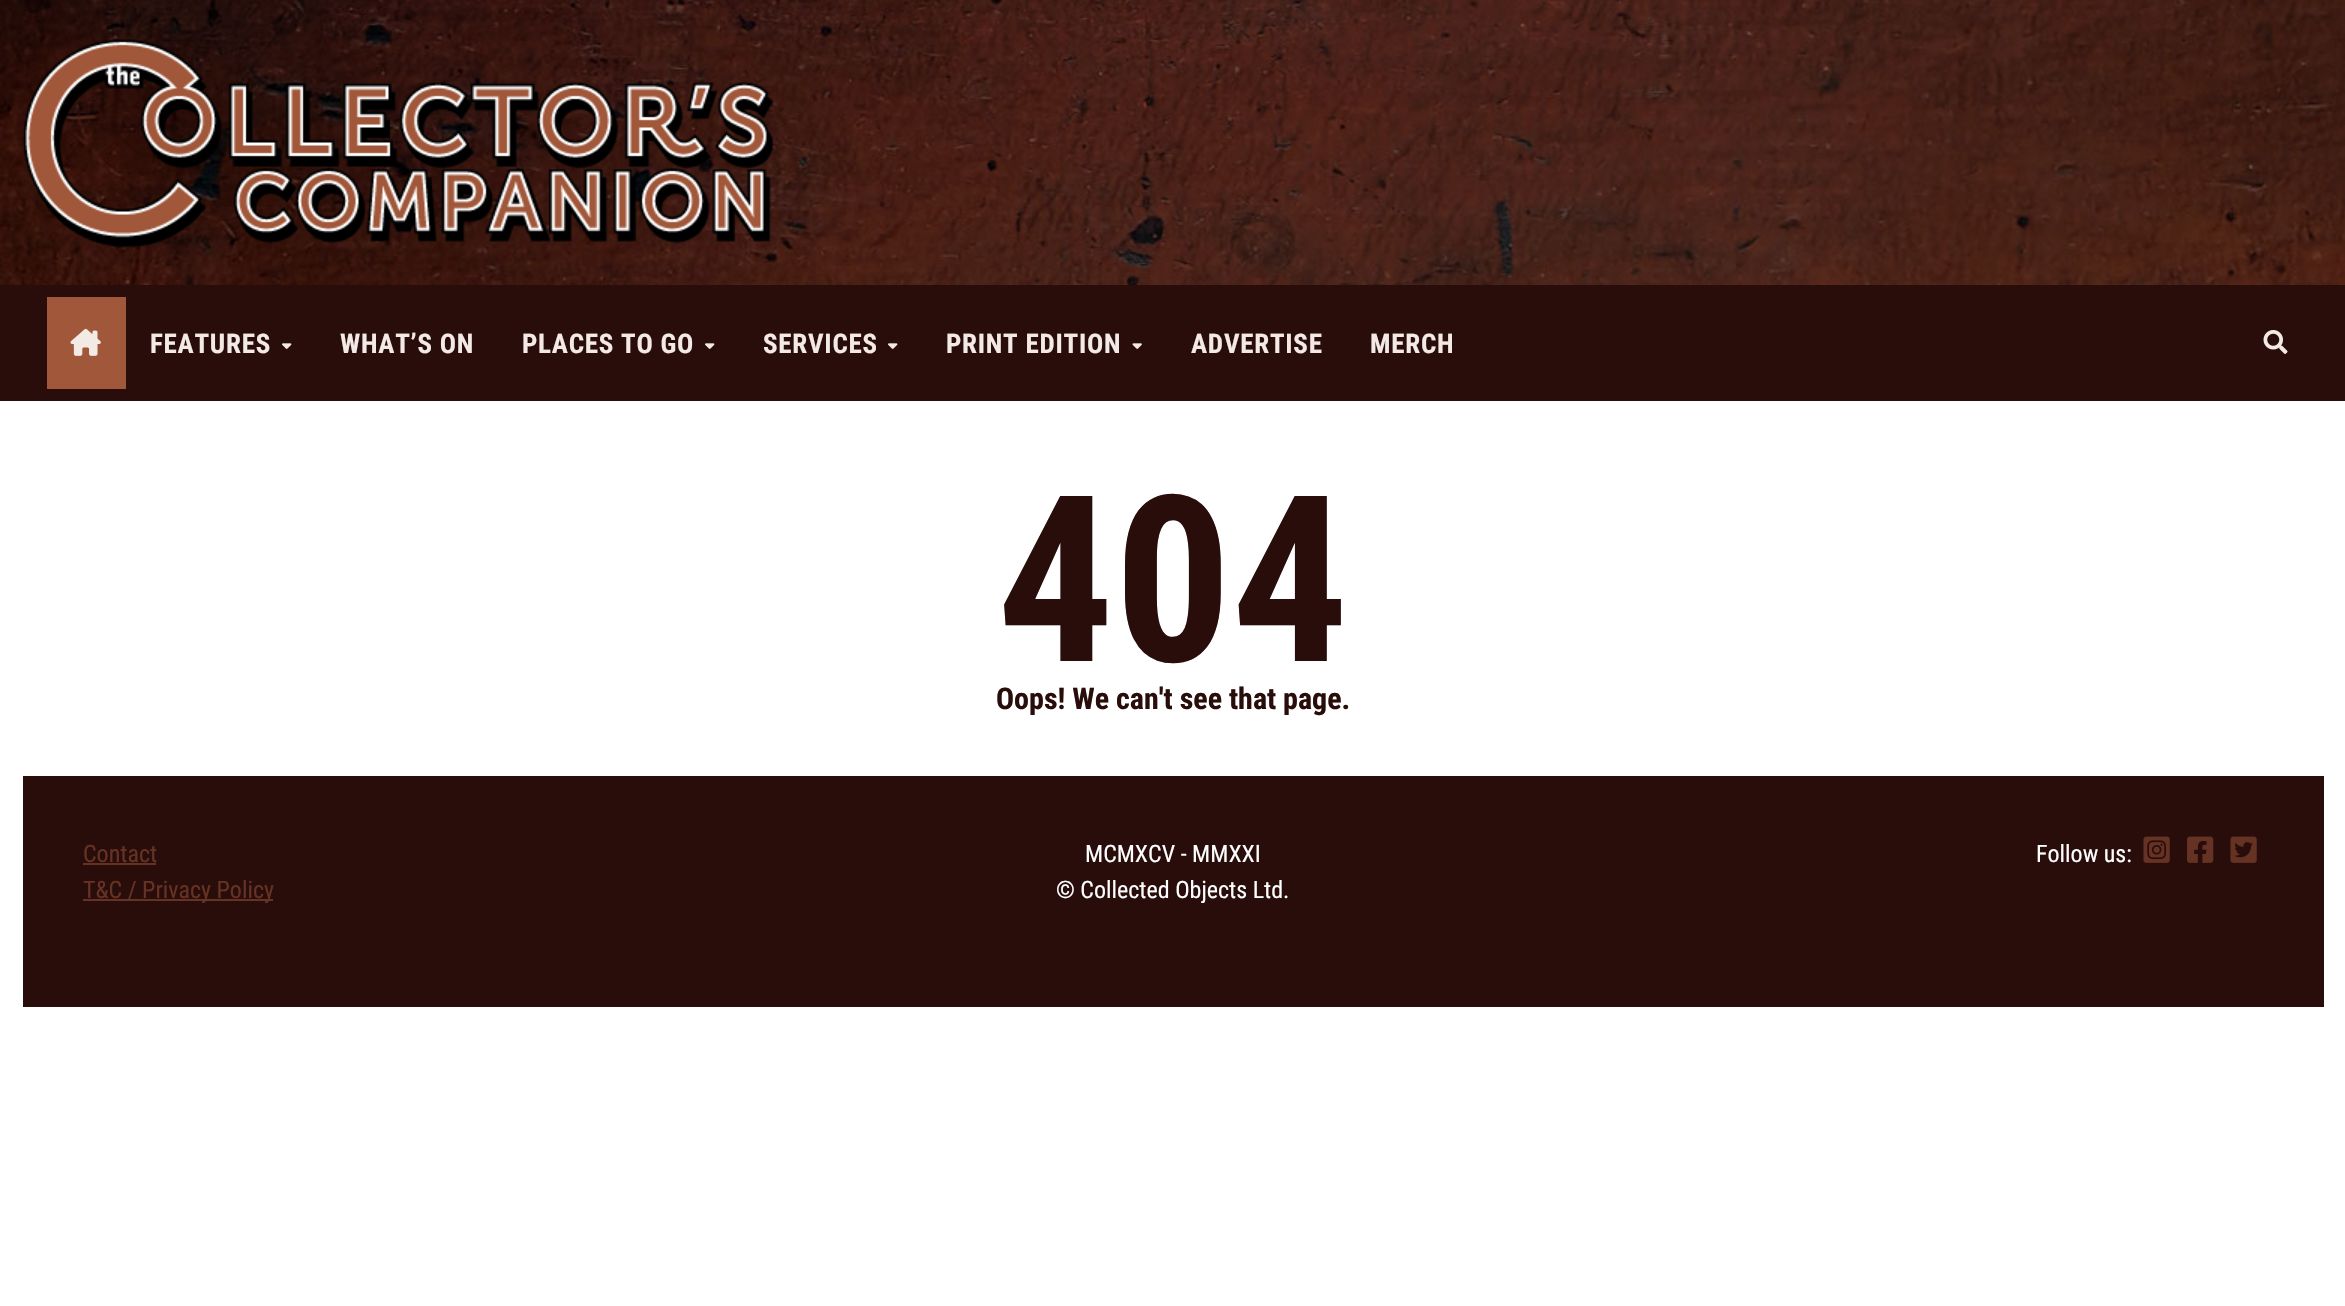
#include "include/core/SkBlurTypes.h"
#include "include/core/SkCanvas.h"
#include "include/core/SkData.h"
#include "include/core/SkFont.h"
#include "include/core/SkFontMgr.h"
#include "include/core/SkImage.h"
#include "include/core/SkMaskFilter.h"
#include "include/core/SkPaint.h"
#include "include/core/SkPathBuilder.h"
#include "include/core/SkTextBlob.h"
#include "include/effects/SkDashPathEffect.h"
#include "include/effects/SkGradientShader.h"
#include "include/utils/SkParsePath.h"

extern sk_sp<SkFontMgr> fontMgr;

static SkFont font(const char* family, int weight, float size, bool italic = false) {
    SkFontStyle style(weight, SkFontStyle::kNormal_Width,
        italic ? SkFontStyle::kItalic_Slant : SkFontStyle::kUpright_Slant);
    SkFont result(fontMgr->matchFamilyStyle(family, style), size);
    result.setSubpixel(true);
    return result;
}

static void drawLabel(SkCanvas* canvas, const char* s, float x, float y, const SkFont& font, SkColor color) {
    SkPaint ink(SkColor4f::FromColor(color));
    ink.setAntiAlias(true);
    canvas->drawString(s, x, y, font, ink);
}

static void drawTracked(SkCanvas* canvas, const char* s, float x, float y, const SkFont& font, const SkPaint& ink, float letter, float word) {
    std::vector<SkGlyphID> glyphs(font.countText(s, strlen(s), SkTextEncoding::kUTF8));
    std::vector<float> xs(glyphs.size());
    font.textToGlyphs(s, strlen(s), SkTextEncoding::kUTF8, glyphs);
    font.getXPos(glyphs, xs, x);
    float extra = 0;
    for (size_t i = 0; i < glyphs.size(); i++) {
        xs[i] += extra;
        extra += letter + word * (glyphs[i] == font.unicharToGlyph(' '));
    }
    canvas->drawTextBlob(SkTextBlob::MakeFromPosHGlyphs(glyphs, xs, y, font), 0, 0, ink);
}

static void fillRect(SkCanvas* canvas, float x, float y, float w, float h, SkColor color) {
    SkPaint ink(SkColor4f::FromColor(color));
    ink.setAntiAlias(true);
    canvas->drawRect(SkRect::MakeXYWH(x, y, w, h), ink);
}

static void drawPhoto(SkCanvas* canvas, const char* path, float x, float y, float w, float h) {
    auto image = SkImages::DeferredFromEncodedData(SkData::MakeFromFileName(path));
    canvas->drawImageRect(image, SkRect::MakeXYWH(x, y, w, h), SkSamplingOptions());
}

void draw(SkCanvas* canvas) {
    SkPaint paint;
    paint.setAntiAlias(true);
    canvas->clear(0xFFFFFFFF);
    drawPhoto(canvas, "assets/img1.png", 0, 0, 2345, 285);
    drawPhoto(canvas, "assets/img2.png", 22, 39, 751, 209);
    fillRect(canvas, 0, 285, 2345, 116, 0xFF290D0B);
    fillRect(canvas, 47, 297, 79, 92, 0xFFA0573A);
    drawPhoto(canvas, "assets/img3.png", 70, 328, 31, 28);
    SkFont font1 = font("Roboto Condensed", 700, 27);
    paint.setColor(0xFFF3EAE6);
    drawTracked(canvas, "FEATURES", 150, 353, font1, paint, 0.75f, 0);
    drawPhoto(canvas, "assets/img4.png", 282, 343, 10, 6);
    drawTracked(canvas, "WHAT’S ON", 340, 353, font1, paint, 0.75f, 0);
    drawTracked(canvas, "PLACES TO GO", 522, 353, font1, paint, 0.75f, 0);
    drawPhoto(canvas, "assets/img4.png", 705, 343, 10, 6);
    drawTracked(canvas, "SERVICES", 763, 353, font1, paint, 0.75f, 0);
    drawPhoto(canvas, "assets/img4.png", 888, 343, 10, 6);
    drawTracked(canvas, "PRINT EDITION", 946, 353, font1, paint, 0.75f, 0);
    drawPhoto(canvas, "assets/img5.png", 1132, 343, 10, 6);
    drawTracked(canvas, "ADVERTISE", 1191, 353, font1, paint, 0.75f, 0);
    drawTracked(canvas, "MERCH", 1370, 353, font1, paint, 0.75f, 0);
    drawPhoto(canvas, "assets/img6.png", 2263, 330, 25, 24);
    SkFont font2 = font("Roboto Condensed", 700, 232);
    drawLabel(canvas, "404", 997, 661, font2, 0xFF290D0B);
    SkFont font3 = font("Roboto Condensed", 700, 30);
    drawLabel(canvas, "Oops! We can't see that page.", 996, 709, font3, 0xFF290D0B);
    fillRect(canvas, 23, 776, 2301, 231, 0xFF290D0B);
    SkFont font4 = font("Roboto Condensed", 400, 24);
    drawLabel(canvas, "Contact", 83, 862, font4, 0xFF653223);
    fillRect(canvas, 83, 863, 73, 2, 0xFF653223);
    fillRect(canvas, 83, 899, 190, 2, 0xFF653223);
    drawLabel(canvas, "T&C / Privacy Policy", 83, 898, font4, 0xFF653223);
    drawLabel(canvas, "MCMXCV - MMXXI", 1085, 862, font4, 0xFFFFFFFF);
    drawLabel(canvas, "© Collected Objects Ltd.", 1056, 898, font4, 0xFFFFFFFF);
    drawLabel(canvas, "Follow us:", 2036, 862, font4, 0xFFFFFFFF);
    drawPhoto(canvas, "assets/img7.png", 2143, 836, 27, 27);
    drawPhoto(canvas, "assets/img8.png", 2187, 836, 27, 27);
    drawPhoto(canvas, "assets/img9.png", 2230, 836, 27, 27);
}
